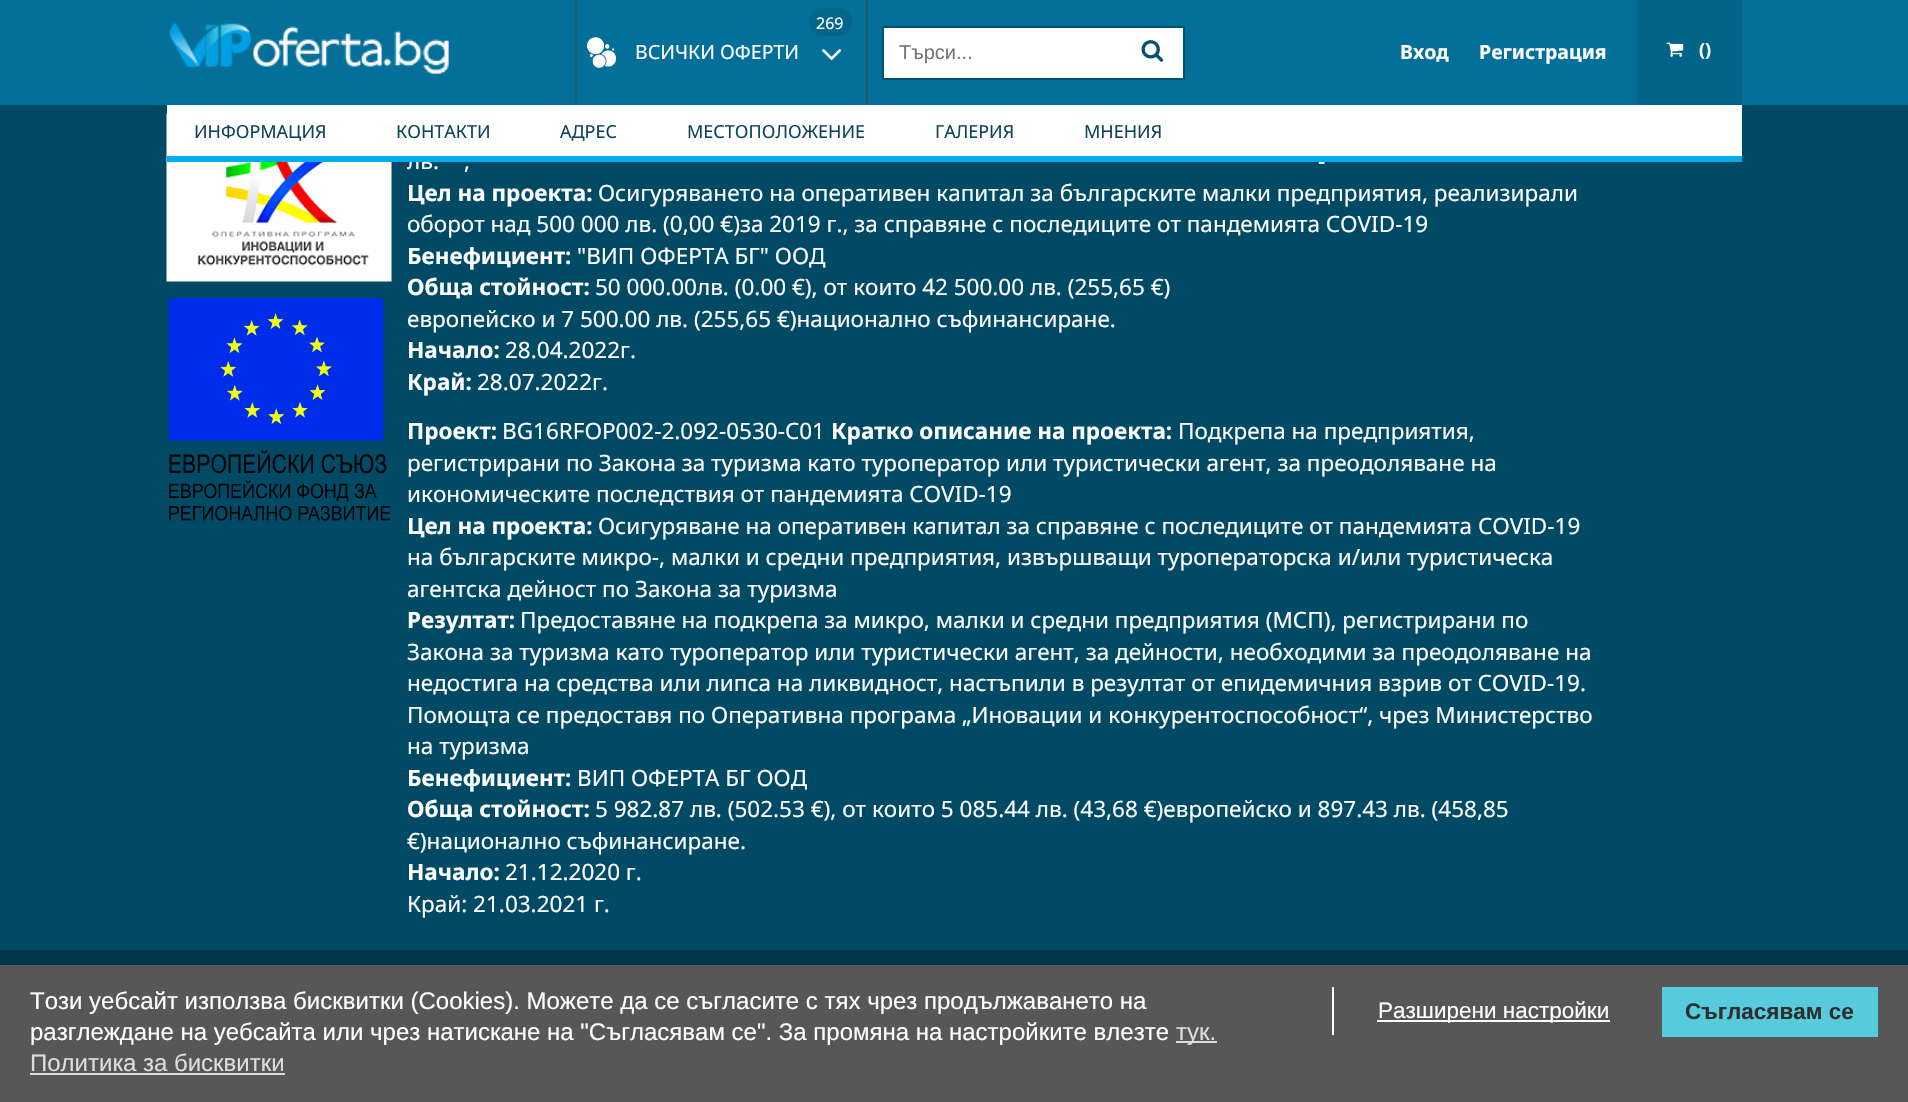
#include "include/core/SkBlurTypes.h"
#include "include/core/SkCanvas.h"
#include "include/core/SkData.h"
#include "include/core/SkFont.h"
#include "include/core/SkFontMgr.h"
#include "include/core/SkImage.h"
#include "include/core/SkMaskFilter.h"
#include "include/core/SkPaint.h"
#include "include/core/SkPathBuilder.h"
#include "include/core/SkTextBlob.h"
#include "include/effects/SkDashPathEffect.h"
#include "include/effects/SkGradientShader.h"
#include "include/utils/SkParsePath.h"

extern sk_sp<SkFontMgr> fontMgr;

static SkFont font(const char* family, int weight, float size, bool italic = false) {
    SkFontStyle style(weight, SkFontStyle::kNormal_Width,
        italic ? SkFontStyle::kItalic_Slant : SkFontStyle::kUpright_Slant);
    SkFont result(fontMgr->matchFamilyStyle(family, style), size);
    result.setSubpixel(true);
    return result;
}

static void drawLabel(SkCanvas* canvas, const char* s, float x, float y, const SkFont& font, SkColor color) {
    SkPaint ink(SkColor4f::FromColor(color));
    ink.setAntiAlias(true);
    canvas->drawString(s, x, y, font, ink);
}

static void fillRect(SkCanvas* canvas, float x, float y, float w, float h, SkColor color) {
    SkPaint ink(SkColor4f::FromColor(color));
    ink.setAntiAlias(true);
    canvas->drawRect(SkRect::MakeXYWH(x, y, w, h), ink);
}

static void fillRRect(SkCanvas* canvas, float x, float y, float w, float h, float radius, SkColor color) {
    SkPaint ink(SkColor4f::FromColor(color));
    ink.setAntiAlias(true);
    canvas->drawRoundRect(SkRect::MakeXYWH(x, y, w, h), radius, radius, ink);
}

static void drawPhoto(SkCanvas* canvas, const char* path, float x, float y, float w, float h) {
    auto image = SkImages::DeferredFromEncodedData(SkData::MakeFromFileName(path));
    canvas->drawImageRect(image, SkRect::MakeXYWH(x, y, w, h), SkSamplingOptions());
}

void draw(SkCanvas* canvas) {
    SkPaint paint;
    paint.setAntiAlias(true);
    canvas->clear(0xFF004A66);
    fillRect(canvas, 0, 0, 1908, 105, 0xFF046F99);
    drawPhoto(canvas, "assets/img1.png", 169, 22, 280, 53);
    drawPhoto(canvas, "assets/img2.png", 586, 37, 31, 31);
    fillRect(canvas, 866, 0, 2, 104, 0xFF26576C);
    fillRect(canvas, 575, 0, 2, 104, 0xFF26576C);
    fillRRect(canvas, 809, 8, 43, 28, 14, 0xFF05668C);
    SkFont font1 = font("Noto Sans", 400, 16);
    drawLabel(canvas, "269", 816, 29, font1, 0xFFFFFFFF);
    SkFont font2 = font("Noto Sans", 400, 19.5f);
    drawLabel(canvas, "ВСИЧКИ ОФЕРТИ", 635, 59, font2, 0xFFFFFFFF);
    drawPhoto(canvas, "assets/img3.png", 822, 49, 20, 12);
    paint.setColor(0xFFFFFFFF);
    canvas->drawRect(SkRect::MakeXYWH(883, 27, 301, 52), paint);
    paint.setStroke(true);
    paint.setStrokeWidth(2);
    paint.setColor(0xFF02516E);
    canvas->drawRect(SkRect::MakeXYWH(883, 27, 301, 52), paint);
    SkFont font3 = font("Liberation Sans", 400, 20);
    drawLabel(canvas, "Търси...", 899, 59, font3, 0xFF757575);
    drawPhoto(canvas, "assets/img4.png", 1141, 40, 23, 22);
    SkFont font4 = font("Noto Sans", 700, 19.5f);
    drawLabel(canvas, "Вход", 1400, 59, font4, 0xFFFFFFFF);
    drawLabel(canvas, "Регистрация", 1479, 59, font4, 0xFFFFFFFF);
    fillRect(canvas, 1637, 0, 105, 105, 0xFF026489);
    drawPhoto(canvas, "assets/img5.png", 1666, 42, 18, 15);
    SkFont font5 = font("Noto Sans", 700, 18);
    drawLabel(canvas, "()", 1699, 56, font5, 0xFFFFFFFF);
    drawPhoto(canvas, "assets/img6.png", 166, 113, 226, 169);
    fillRect(canvas, 167, 105, 1575, 51, 0xFFFFFFFF);
    SkFont font6 = font("Noto Sans", 400, 22.5f);
    drawLabel(canvas, "лв.", 407, 169, font6, 0xFFFFFFFF);
    fillRect(canvas, 167, 156, 1575, 6, 0xFF00AEEF);
    SkFont font7 = font("Noto Sans", 400, 18);
    drawLabel(canvas, "ИНФОРМАЦИЯ", 194, 138, font7, 0xFF0D445B);
    drawLabel(canvas, "КОНТАКТИ", 396, 138, font7, 0xFF0D445B);
    drawLabel(canvas, "АДРЕС", 560, 138, font7, 0xFF0D445B);
    drawLabel(canvas, "МЕСТОПОЛОЖЕНИЕ", 687, 138, font7, 0xFF0D445B);
    drawLabel(canvas, "ГАЛЕРИЯ", 935, 138, font7, 0xFF0D445B);
    drawLabel(canvas, "МНЕНИЯ", 1084, 138, font7, 0xFF0D445B);
    drawPhoto(canvas, "assets/img7.png", 168, 297, 223, 224);
    drawLabel(canvas, "-", 1318, 169, font6, 0xFFFFFFFF);
    drawLabel(canvas, ",", 464, 169, font6, 0xFFFFFFFF);
    SkFont font8 = font("Noto Sans", 700, 22.5f);
    drawLabel(canvas, "Цел на проекта:", 407, 201, font8, 0xFFFFFFFF);
    drawLabel(canvas, "Осигуряването на оперативен капитал за българските малки предприятия, реализирали", 598, 201, font6, 0xFFFFFFFF);
    drawLabel(canvas, "оборот над 500 000 лв. (0,00 €)за 2019 г., за справяне с последиците от пандемията COVID-19", 407, 232, font6, 0xFFFFFFFF);
    drawLabel(canvas, "Бенефициент:", 407, 264, font8, 0xFFFFFFFF);
    drawLabel(canvas, "\"ВИП ОФЕРТА БГ\" ООД", 577, 264, font6, 0xFFFFFFFF);
    drawLabel(canvas, "Обща стойност:", 407, 295, font8, 0xFFFFFFFF);
    drawLabel(canvas, "50 000.00лв. (0.00 €), от които 42 500.00 лв. (255,65 €)", 595, 295, font6, 0xFFFFFFFF);
    drawLabel(canvas, "европейско и 7 500.00 лв. (255,65 €)национално съфинансиране.", 407, 327, font6, 0xFFFFFFFF);
    drawLabel(canvas, "Начало:", 407, 358, font8, 0xFFFFFFFF);
    drawLabel(canvas, "28.04.2022г.", 505, 358, font6, 0xFFFFFFFF);
    drawLabel(canvas, "Край:", 407, 390, font8, 0xFFFFFFFF);
    drawLabel(canvas, "28.07.2022г.", 477, 390, font6, 0xFFFFFFFF);
    drawLabel(canvas, "Проект:", 407, 439, font8, 0xFFFFFFFF);
    drawLabel(canvas, "BG16RFOP002-2.092-0530-C01", 502, 439, font6, 0xFFFFFFFF);
    drawLabel(canvas, "Кратко описание на проекта:", 831, 439, font8, 0xFFFFFFFF);
    drawLabel(canvas, "Подкрепа на предприятия,", 1178, 439, font6, 0xFFFFFFFF);
    drawLabel(canvas, "регистрирани по Закона за туризма като туроператор или туристически агент, за преодоляване на", 407, 471, font6, 0xFFFFFFFF);
    drawLabel(canvas, "икономическите последствия от пандемията COVID-19", 407, 502, font6, 0xFFFFFFFF);
    drawLabel(canvas, "Цел на проекта:", 407, 534, font8, 0xFFFFFFFF);
    drawLabel(canvas, "Осигуряване на оперативен капитал за справяне с последиците от пандемията COVID-19", 598, 534, font6, 0xFFFFFFFF);
    drawLabel(canvas, "на българските микро-, малки и средни предприятия, извършващи туроператорска и/или туристическа", 407, 565, font6, 0xFFFFFFFF);
    drawLabel(canvas, "агентска дейност по Закона за туризма", 407, 597, font6, 0xFFFFFFFF);
    drawLabel(canvas, "Резултат:", 407, 628, font8, 0xFFFFFFFF);
    drawLabel(canvas, "Предоставяне на подкрепа за микро, малки и средни предприятия (МСП), регистрирани по", 520, 628, font6, 0xFFFFFFFF);
    drawLabel(canvas, "Закона за туризма като туроператор или туристически агент, за дейности, необходими за преодоляване на", 407, 660, font6, 0xFFFFFFFF);
    drawLabel(canvas, "недостига на средства или липса на ликвидност, настъпили в резултат от епидемичния взрив от COVID-19.", 407, 691, font6, 0xFFFFFFFF);
    drawLabel(canvas, "Помощта се предоставя по Оперативна програма „Иновации и конкурентоспособност“, чрез Министерство", 407, 723, font6, 0xFFFFFFFF);
    drawLabel(canvas, "на туризма", 407, 754, font6, 0xFFFFFFFF);
    drawLabel(canvas, "Бенефициент:", 407, 786, font8, 0xFFFFFFFF);
    drawLabel(canvas, "ВИП ОФЕРТА БГ ООД", 577, 786, font6, 0xFFFFFFFF);
    drawLabel(canvas, "Обща стойност:", 407, 817, font8, 0xFFFFFFFF);
    drawLabel(canvas, "5 982.87 лв. (502.53 €), от които 5 085.44 лв. (43,68 €)европейско и 897.43 лв. (458,85", 595, 817, font6, 0xFFFFFFFF);
    drawLabel(canvas, "€)национално съфинансиране.", 407, 849, font6, 0xFFFFFFFF);
    drawLabel(canvas, "Начало:", 407, 880, font8, 0xFFFFFFFF);
    drawLabel(canvas, "21.12.2020 г.", 505, 880, font6, 0xFFFFFFFF);
    drawLabel(canvas, "Край: 21.03.2021 г.", 407, 912, font6, 0xFFFFFFFF);
    fillRect(canvas, 0, 950, 1908, 15, 0xFF013549);
    fillRect(canvas, 0, 965, 1908, 137, 0xFF575757);
    SkFont font9 = font("Liberation Sans", 400, 24);
    drawLabel(canvas, "Този уебсайт използва бисквитки (Cookies). Можете да се съгласите с тях чрез продължаването на", 30, 1009, font9, 0xFFFFFFFF);
    drawLabel(canvas, "разглеждане на уебсайта или чрез натискане на \"Съгласявам се\". За промяна на настройките влезте", 30, 1040, font9, 0xFFFFFFFF);
    fillRect(canvas, 1176, 1041, 41, 2, 0xFFDDDDDD);
    drawLabel(canvas, "тук.", 1176, 1040, font9, 0xFFDDDDDD);
    drawLabel(canvas, "Политика за бисквитки", 30, 1071, font9, 0xFFDDDDDD);
    fillRect(canvas, 30, 1073, 255, 2, 0xFFDDDDDD);
    fillRect(canvas, 1332, 987, 2, 48, 0xFFFFFFFF);
    fillRect(canvas, 1377, 1020, 233, 2, 0xFFFFFFFF);
    SkFont font10 = font("Liberation Sans", 400, 22.5f);
    drawLabel(canvas, "Разширени настройки", 1378, 1018, font10, 0xFFFFFFFF);
    fillRect(canvas, 1662, 987, 216, 50, 0xFF56CBDB);
    SkFont font11 = font("Liberation Sans", 700, 22.5f);
    drawLabel(canvas, "Съгласявам се", 1685, 1019, font11, 0xFF2E2E2E);
}
